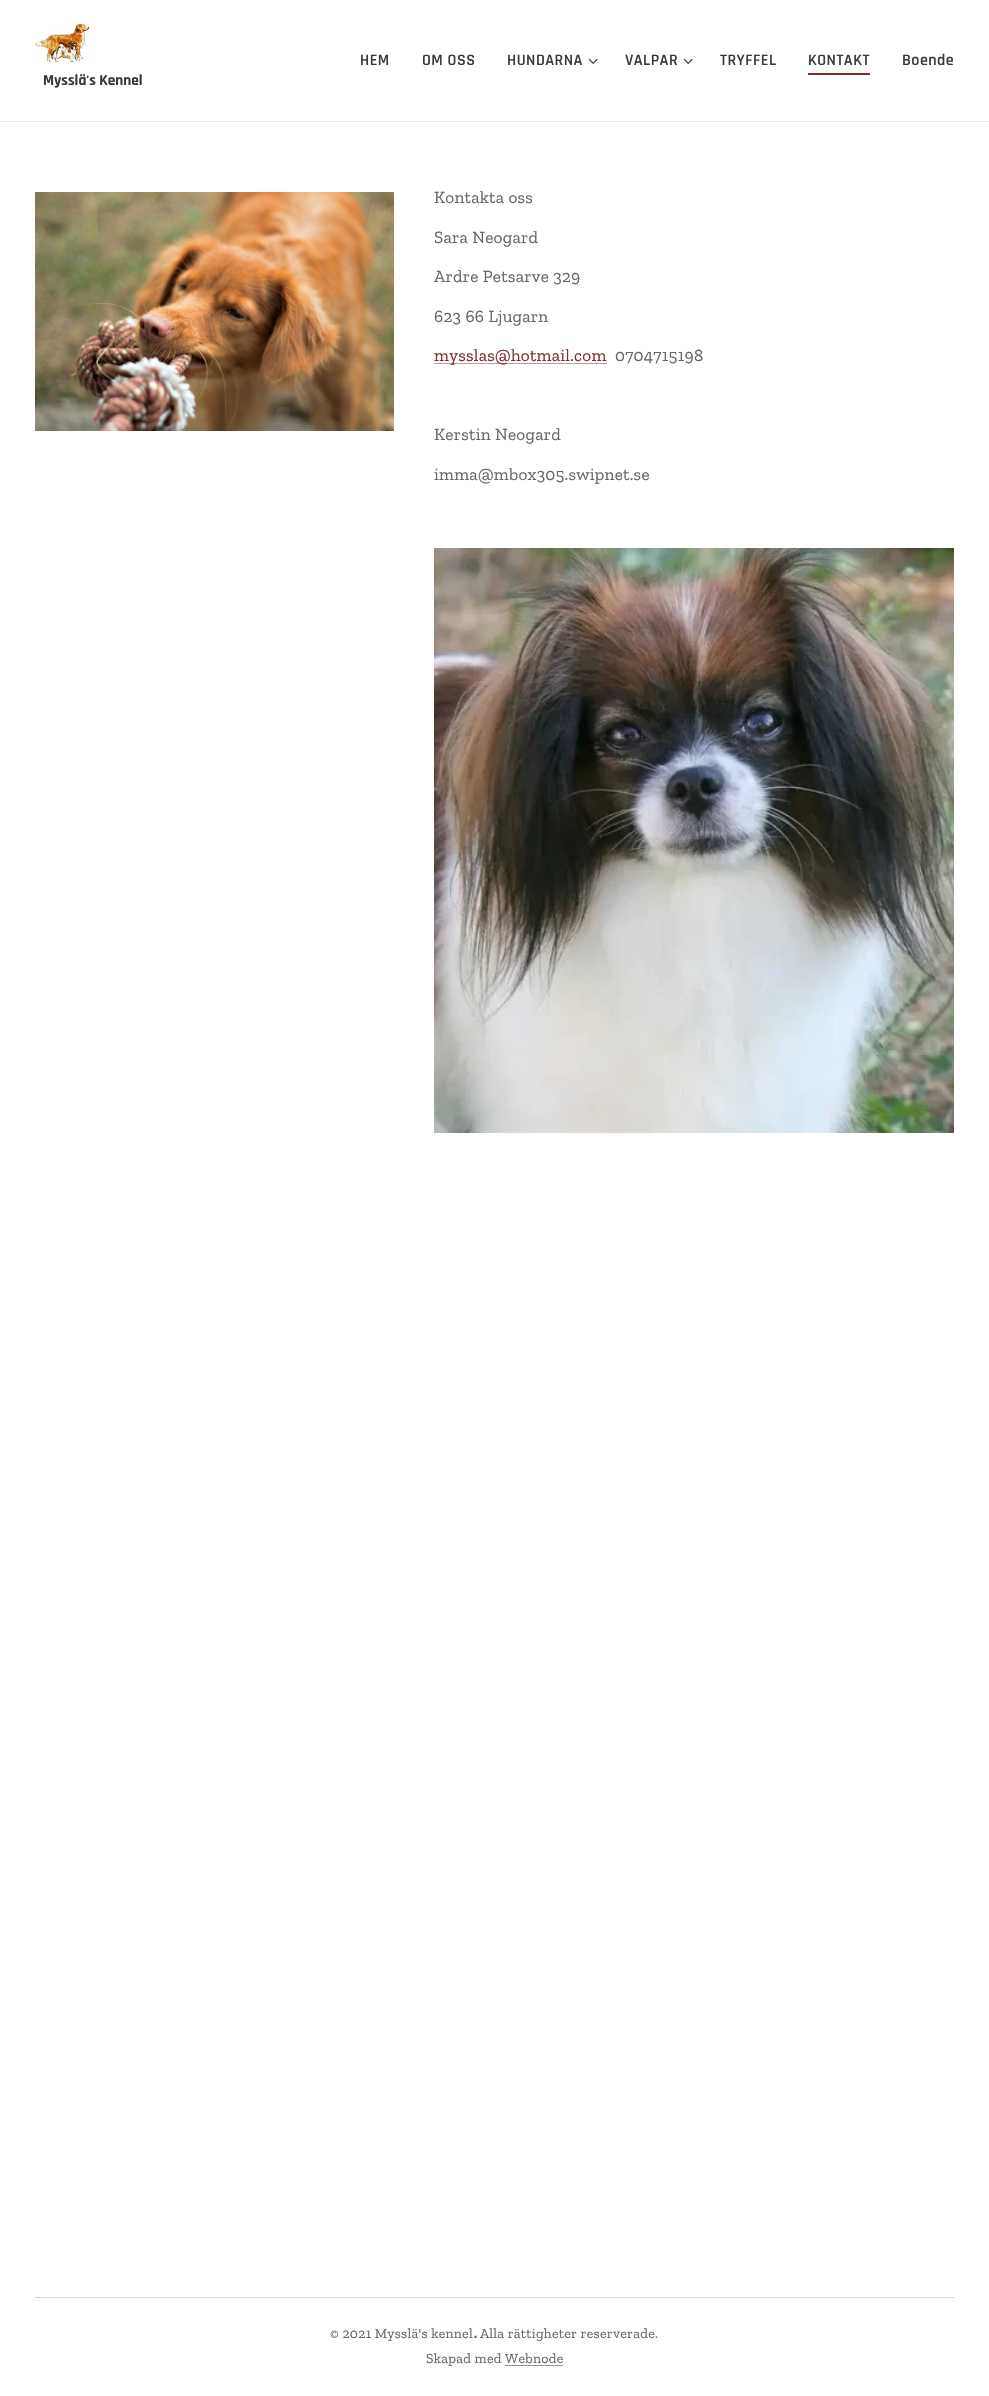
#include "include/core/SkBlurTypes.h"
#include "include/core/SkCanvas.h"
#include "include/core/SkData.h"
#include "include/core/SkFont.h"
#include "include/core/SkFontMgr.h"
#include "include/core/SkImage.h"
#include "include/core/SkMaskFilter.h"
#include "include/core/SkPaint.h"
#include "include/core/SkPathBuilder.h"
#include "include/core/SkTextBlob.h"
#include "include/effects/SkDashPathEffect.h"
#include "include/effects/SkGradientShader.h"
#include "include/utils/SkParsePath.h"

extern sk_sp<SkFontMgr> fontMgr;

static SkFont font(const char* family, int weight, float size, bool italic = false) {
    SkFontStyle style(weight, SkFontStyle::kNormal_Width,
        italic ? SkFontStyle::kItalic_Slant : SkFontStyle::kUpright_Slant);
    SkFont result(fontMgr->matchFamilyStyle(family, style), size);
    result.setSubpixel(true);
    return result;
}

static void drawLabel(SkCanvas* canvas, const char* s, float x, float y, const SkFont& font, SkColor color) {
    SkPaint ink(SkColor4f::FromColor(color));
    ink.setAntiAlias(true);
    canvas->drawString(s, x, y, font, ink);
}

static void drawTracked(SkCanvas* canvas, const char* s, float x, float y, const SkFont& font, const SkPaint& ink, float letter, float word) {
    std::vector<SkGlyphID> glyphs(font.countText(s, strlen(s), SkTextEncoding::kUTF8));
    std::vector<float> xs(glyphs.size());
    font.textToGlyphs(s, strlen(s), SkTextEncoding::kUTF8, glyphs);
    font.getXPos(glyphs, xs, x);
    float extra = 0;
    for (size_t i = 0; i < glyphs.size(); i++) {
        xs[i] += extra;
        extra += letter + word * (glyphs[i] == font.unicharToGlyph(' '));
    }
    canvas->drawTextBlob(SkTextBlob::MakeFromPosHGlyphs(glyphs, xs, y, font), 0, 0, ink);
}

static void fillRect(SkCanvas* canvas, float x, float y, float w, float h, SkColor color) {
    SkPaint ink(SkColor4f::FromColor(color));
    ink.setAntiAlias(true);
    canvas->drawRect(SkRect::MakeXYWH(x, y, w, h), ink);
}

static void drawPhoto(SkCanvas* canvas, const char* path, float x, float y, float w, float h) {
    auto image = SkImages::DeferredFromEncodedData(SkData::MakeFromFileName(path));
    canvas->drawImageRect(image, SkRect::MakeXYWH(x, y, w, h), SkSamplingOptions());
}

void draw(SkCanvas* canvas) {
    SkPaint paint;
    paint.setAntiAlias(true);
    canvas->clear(0xFFFFFFFF);
    SkFont font1 = font("Rajdhani", 600, 16);
    paint.setColor(0xFF393939);
    drawTracked(canvas, "HEM", 360, 65, font1, paint, 0.5f, 0);
    drawTracked(canvas, "OM OSS", 422, 65, font1, paint, 0.5f, 0);
    drawTracked(canvas, "HUNDARNA", 507, 65, font1, paint, 0.5f, 0);
    drawPhoto(canvas, "assets/img1.png", 588, 58, 10, 6);
    drawTracked(canvas, "VALPAR", 625, 65, font1, paint, 0.5f, 0);
    drawPhoto(canvas, "assets/img1.png", 683, 58, 10, 6);
    drawTracked(canvas, "TRYFFEL", 720, 65, font1, paint, 0.5f, 0);
    drawTracked(canvas, "KONTAKT", 808, 65, font1, paint, 0.5f, 0);
    fillRect(canvas, 808, 73, 62, 2, 0xFF7D2F2F);
    drawTracked(canvas, "Boende", 902, 65, font1, paint, 0.5f, 0);
    drawPhoto(canvas, "assets/img2.png", 35, 24, 55, 39);
    SkFont font2 = font("Rajdhani", 700, 15.25f);
    drawLabel(canvas, "Mysslä's Kennel", 43, 85, font2, 0xFF393939);
    fillRect(canvas, 0, 121, 989, 1, 0xFFE8E8E8);
    drawPhoto(canvas, "assets/img3.png", 35, 192, 359, 239);
    SkFont font3 = font("Zilla Slab", 400, 17.25f);
    paint.setColor(0xFF666666);
    drawTracked(canvas, "Kontakta oss", 434, 203, font3, paint, 0.25f, 0);
    drawTracked(canvas, "Sara Neogard", 434, 243, font3, paint, 0.25f, 0);
    drawTracked(canvas, "Ardre Petsarve 329", 434, 282, font3, paint, 0.25f, 0);
    drawTracked(canvas, "623 66 Ljugarn", 434, 322, font3, paint, 0.25f, 0);
    fillRect(canvas, 434, 363, 173, 1, 0xFFBE9797);
    paint.setColor(0xFF7D2F2F);
    drawTracked(canvas, "mysslas@hotmail.com", 434, 361, font3, paint, 0.25f, 0);
    paint.setColor(0xFF666666);
    drawTracked(canvas, "0704715198", 615, 361, font3, paint, 0.25f, 0);
    drawTracked(canvas, "Kerstin Neogard", 434, 440, font3, paint, 0.25f, 0);
    drawTracked(canvas, "imma@mbox305.swipnet.se", 434, 480, font3, paint, 0.25f, 0);
    drawPhoto(canvas, "assets/img4.png", 434, 548, 520, 585);
    fillRect(canvas, 35, 2297, 919, 1, 0xFFD4D4D4);
    SkFont font4 = font("Zilla Slab", 400, 14);
    drawTracked(canvas, "© 2021 Mysslä's kennel", 330, 2338, font4, paint, 0.25f, 0);
    SkFont font5 = font("Zilla Slab", 700, 14);
    drawTracked(canvas, ".", 474, 2338, font5, paint, 0.25f, 0);
    drawTracked(canvas, "Alla rättigheter reserverade.", 480, 2338, font4, paint, 0.25f, 0);
    drawTracked(canvas, "Skapad med Webnode", 426, 2363, font4, paint, 0.25f, 0);
    fillRect(canvas, 505, 2365, 58, 1, 0xFF949494);
}
